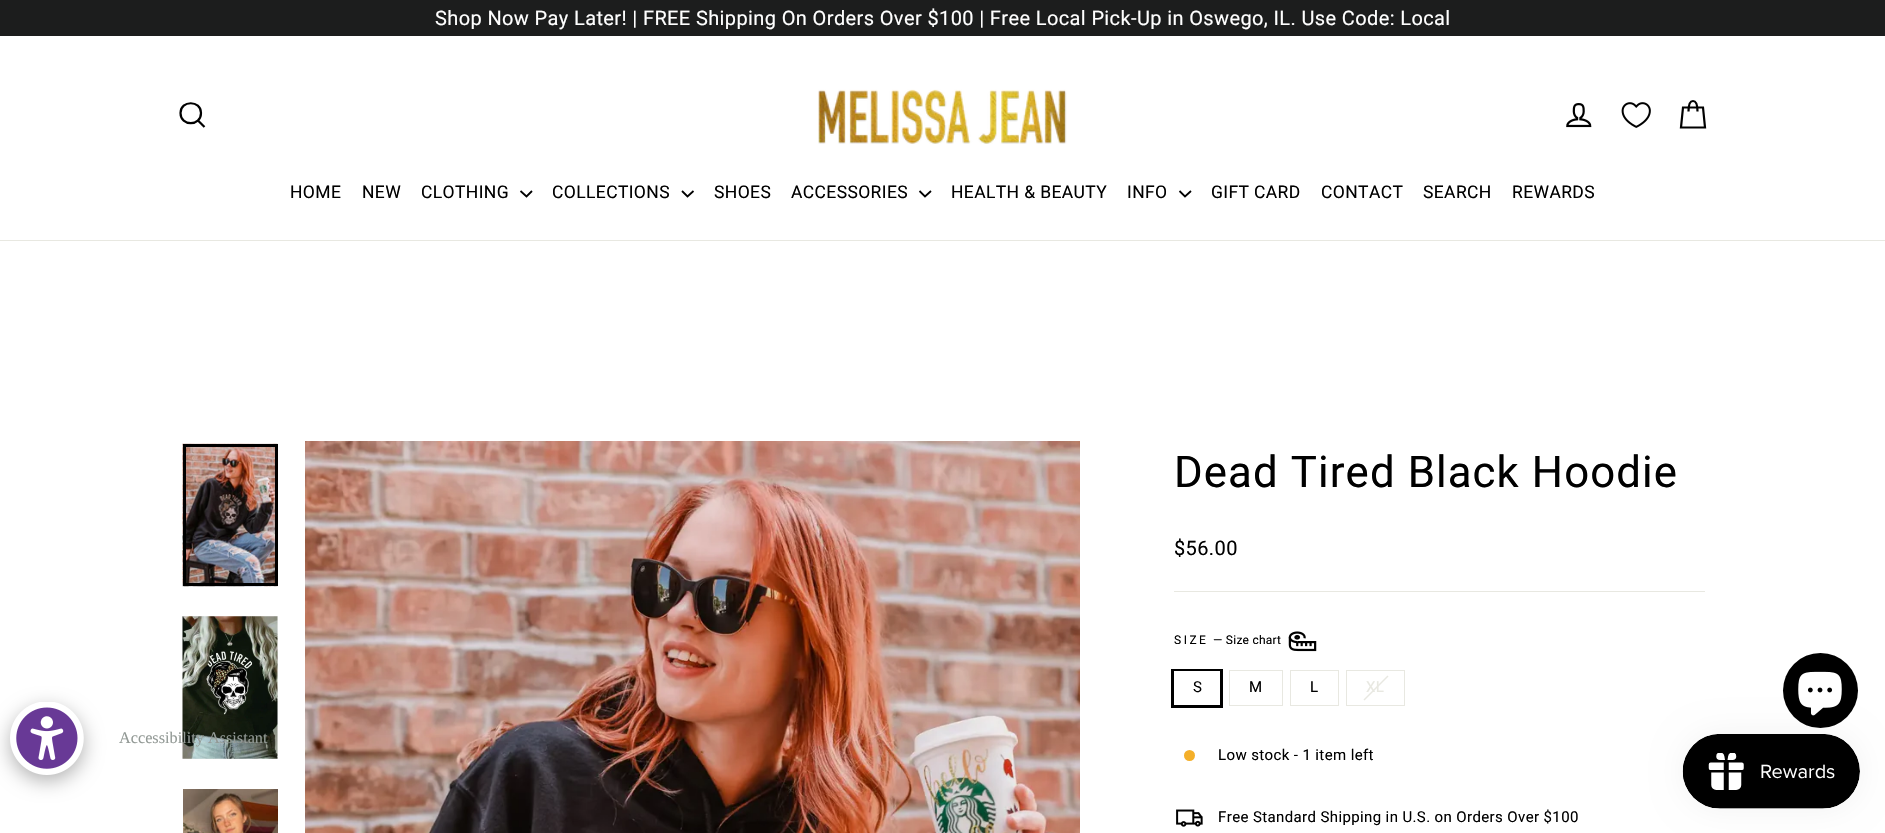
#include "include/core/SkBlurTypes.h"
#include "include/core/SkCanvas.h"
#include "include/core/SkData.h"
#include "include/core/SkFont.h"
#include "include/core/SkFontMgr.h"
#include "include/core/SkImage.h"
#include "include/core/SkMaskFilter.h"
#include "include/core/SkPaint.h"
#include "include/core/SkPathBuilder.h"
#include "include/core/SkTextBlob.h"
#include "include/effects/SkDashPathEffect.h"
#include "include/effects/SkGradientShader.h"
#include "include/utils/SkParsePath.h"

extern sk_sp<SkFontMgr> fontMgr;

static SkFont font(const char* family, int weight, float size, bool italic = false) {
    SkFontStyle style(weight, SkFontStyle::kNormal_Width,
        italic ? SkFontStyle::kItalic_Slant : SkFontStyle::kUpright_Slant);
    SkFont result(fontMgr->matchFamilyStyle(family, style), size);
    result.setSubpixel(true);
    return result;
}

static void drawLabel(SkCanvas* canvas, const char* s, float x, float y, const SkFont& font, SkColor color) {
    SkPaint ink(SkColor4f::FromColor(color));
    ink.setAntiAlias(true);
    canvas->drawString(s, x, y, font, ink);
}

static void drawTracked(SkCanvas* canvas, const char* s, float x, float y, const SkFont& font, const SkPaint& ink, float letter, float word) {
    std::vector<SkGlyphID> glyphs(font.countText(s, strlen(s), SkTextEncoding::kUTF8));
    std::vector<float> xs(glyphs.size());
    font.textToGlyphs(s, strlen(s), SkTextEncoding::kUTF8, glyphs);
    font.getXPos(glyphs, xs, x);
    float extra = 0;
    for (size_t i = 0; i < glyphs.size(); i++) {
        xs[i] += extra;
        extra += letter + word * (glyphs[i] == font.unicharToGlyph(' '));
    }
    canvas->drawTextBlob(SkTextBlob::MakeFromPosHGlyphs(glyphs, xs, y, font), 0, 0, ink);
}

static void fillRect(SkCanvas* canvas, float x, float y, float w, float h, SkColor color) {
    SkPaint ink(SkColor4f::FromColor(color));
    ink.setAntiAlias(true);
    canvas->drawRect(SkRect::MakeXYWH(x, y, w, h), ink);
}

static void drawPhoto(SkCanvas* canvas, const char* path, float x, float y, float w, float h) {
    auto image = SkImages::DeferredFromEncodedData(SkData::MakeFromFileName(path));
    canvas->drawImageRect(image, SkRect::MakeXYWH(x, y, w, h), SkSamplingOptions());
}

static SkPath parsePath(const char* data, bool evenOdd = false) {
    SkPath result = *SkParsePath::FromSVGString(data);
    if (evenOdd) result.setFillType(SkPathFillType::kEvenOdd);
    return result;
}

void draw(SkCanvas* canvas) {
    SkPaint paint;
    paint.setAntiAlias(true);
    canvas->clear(0xFFFFFFFF);
    paint.setColor(0x4D000000);
    paint.setMaskFilter(SkMaskFilter::MakeBlur(kNormal_SkBlurStyle, 9.5f));
    canvas->drawRoundRect(SkRect::MakeXYWH(10, 708, 74, 73), 36.5f, 36.5f, paint);
    paint.setMaskFilter(nullptr);
    drawPhoto(canvas, "assets/img1.png", 10, 702, 74, 73);
    fillRect(canvas, 183, 616, 95, 143, 0xFFF4F4F4);
    drawPhoto(canvas, "assets/img6.png", 182, 616, 96, 143);
    SkFont font1 = font("Liberation Serif", 400, 16.25f);
    drawLabel(canvas, "Accessibility Assistant", 119, 743, font1, 0xFF939A96);
    fillRect(canvas, 0, 0, 1885, 36, 0xFF1C1D1D);
    SkFont font2 = font("Roboto", 400, 20);
    paint.setColor(0xFFFFFFFF);
    drawTracked(canvas, "Shop Now Pay Later! | FREE Shipping On Orders Over $100 | Free Local Pick-Up in Oswego, IL. Use Code: Local", 435, 25, font2, paint, 0.38f, 0);
    fillRect(canvas, 0, 240, 1885, 1, 0xFFE8E8E1);
    paint.setStroke(true);
    paint.setStrokeWidth(2.2f);
    paint.setColor(0xFF000000);
    canvas->drawPath(parsePath("M201 113C201 126.5 180.5 126.5 180.5 113C180.5 100 201 100 201 113ZM204.5 127L198 120.5"), paint);
    drawPhoto(canvas, "assets/img2.png", 818, 89, 249, 55);
    drawPhoto(canvas, "assets/img3.png", 1566, 103, 26, 25);
    drawPhoto(canvas, "assets/img4.png", 1621, 102, 30, 26);
    canvas->drawPath(parsePath("M1688.5 111.5C1688.5 103 1690.5 101 1693 101C1695.5 101 1697.5 103 1697.5 111.5M1683 107.5H1703L1705 127.5H1681Z"), paint);
    SkFont font3 = font("Roboto", 400, 17.5f);
    paint.setStroke(false);
    drawTracked(canvas, "HOME", 290, 198, font3, paint, 0.38f, 0);
    drawTracked(canvas, "NEW", 362, 198, font3, paint, 0.38f, 0);
    drawTracked(canvas, "CLOTHING", 421, 198, font3, paint, 0.38f, 0);
    paint.setStroke(true);
    paint.setStrokeWidth(1.8f);
    canvas->drawPath(parsePath("M520.5 191L526.5 196.5L532 191"), paint);
    paint.setStroke(false);
    drawTracked(canvas, "COLLECTIONS", 552, 198, font3, paint, 0.38f, 0);
    paint.setStroke(true);
    canvas->drawPath(parsePath("M682 191L687.5 196.5L693.5 191"), paint);
    paint.setStroke(false);
    drawTracked(canvas, "SHOES", 714, 198, font3, paint, 0.38f, 0);
    drawTracked(canvas, "ACCESSORIES", 791, 198, font3, paint, 0.38f, 0);
    paint.setStroke(true);
    canvas->drawPath(parsePath("M919.5 191L925 196.5L931 191"), paint);
    paint.setStroke(false);
    drawTracked(canvas, "HEALTH & BEAUTY", 951, 198, font3, paint, 0.38f, 0);
    drawTracked(canvas, "INFO", 1127, 198, font3, paint, 0.38f, 0);
    paint.setStroke(true);
    canvas->drawPath(parsePath("M1179.5 191L1185 196.5L1191 191"), paint);
    paint.setStroke(false);
    drawTracked(canvas, "GIFT CARD", 1211, 198, font3, paint, 0.38f, 0);
    drawTracked(canvas, "CONTACT", 1321, 198, font3, paint, 0.38f, 0);
    drawTracked(canvas, "SEARCH", 1423, 198, font3, paint, 0.38f, 0);
    drawTracked(canvas, "REWARDS", 1512, 198, font3, paint, 0.38f, 0);
    drawPhoto(canvas, "assets/img5.png", 182, 443, 96, 144);
    paint.setStroke(true);
    paint.setStrokeWidth(3);
    canvas->drawRect(SkRect::MakeXYWH(184.5f, 445.5f, 92, 139), paint);
    drawPhoto(canvas, "assets/img7.png", 183, 789, 95, 44);
    drawPhoto(canvas, "assets/img8.png", 305, 441, 775, 392);
    SkFont font4 = font("Roboto", 400, 43.75f);
    paint.setStroke(false);
    drawTracked(canvas, "Dead Tired Black Hoodie", 1174, 487, font4, paint, 1.1f, 0);
    drawTracked(canvas, "$56.00", 1174, 555, font2, paint, 0.38f, 0);
    fillRect(canvas, 1174, 591, 531, 1, 0xFFE8E8E1);
    SkFont font5 = font("Roboto", 400, 12);
    drawTracked(canvas, "SIZE", 1174, 644, font5, paint, 2.5f, 0);
    drawTracked(canvas, "— Size chart", 1213, 644, font5, paint, 0.25f, 0);
    drawPhoto(canvas, "assets/img9.png", 1288, 631, 29, 21);
    paint.setStroke(true);
    canvas->drawRect(SkRect::MakeXYWH(1172.5f, 670.5f, 49, 36), paint);
    fillRect(canvas, 1174, 671, 46, 1, 0xFFFFFFFF);
    SkFont font6 = font("Roboto", 400, 15);
    paint.setStroke(false);
    drawTracked(canvas, "S", 1193, 692, font6, paint, 0.38f, 0);
    paint.setStroke(true);
    paint.setStrokeWidth(1);
    paint.setColor(0xFFE8E8E1);
    canvas->drawRect(SkRect::MakeXYWH(1229.5f, 670.5f, 53, 35), paint);
    paint.setStroke(false);
    paint.setColor(0xFF000000);
    drawTracked(canvas, "M", 1249, 692, font6, paint, 0.38f, 0);
    paint.setStroke(true);
    paint.setColor(0xFFE8E8E1);
    canvas->drawRect(SkRect::MakeXYWH(1290.5f, 670.5f, 48, 35), paint);
    paint.setStroke(false);
    paint.setColor(0xFF000000);
    drawTracked(canvas, "L", 1310, 692, font6, paint, 0.38f, 0);
    paint.setStroke(true);
    paint.setColor(0xFFE8E8E1);
    canvas->drawRect(SkRect::MakeXYWH(1346.5f, 670.5f, 58, 35), paint);
    paint.setStroke(false);
    canvas->drawPath(parsePath("M1387.5 675.5L1388.5 676.5L1364.5 700.5L1363.5 699.5Z"), paint);
    drawTracked(canvas, "XL", 1366, 692, font6, paint, 0.38f, 0);
    paint.setColor(0xFFF4AF29);
    canvas->drawCircle(1189.5f, 755.5f, 5.5f, paint);
    paint.setColor(0xFF000000);
    drawTracked(canvas, "Low stock - 1 item left", 1218, 760, font6, paint, 0.38f, 0);
    drawPhoto(canvas, "assets/img10.png", 1176, 809, 27, 18);
    drawTracked(canvas, "Free Standard Shipping in U.S. on Orders Over $100", 1218, 822, font6, paint, 0.38f, 0);
    canvas->drawCircle(1820.5f, 690.5f, 37.5f, paint);
    drawPhoto(canvas, "assets/img11.png", 1798, 671, 44, 45);
    paint.setColor(0x0D000000);
    paint.setMaskFilter(SkMaskFilter::MakeBlur(kNormal_SkBlurStyle, 15.5f));
    canvas->drawRoundRect(SkRect::MakeXYWH(1683, 734, 177, 75), 37.5f, 37.5f, paint);
    paint.setMaskFilter(nullptr);
    drawPhoto(canvas, "assets/img12.png", 1682, 734, 178, 75);
}
